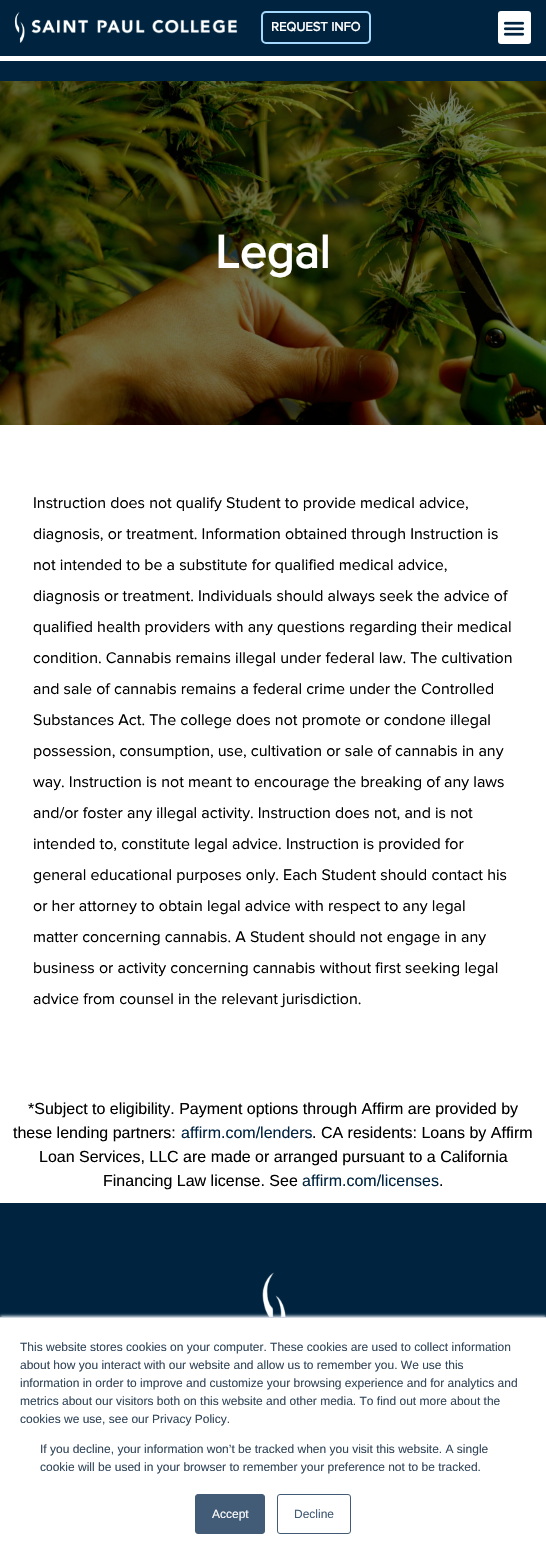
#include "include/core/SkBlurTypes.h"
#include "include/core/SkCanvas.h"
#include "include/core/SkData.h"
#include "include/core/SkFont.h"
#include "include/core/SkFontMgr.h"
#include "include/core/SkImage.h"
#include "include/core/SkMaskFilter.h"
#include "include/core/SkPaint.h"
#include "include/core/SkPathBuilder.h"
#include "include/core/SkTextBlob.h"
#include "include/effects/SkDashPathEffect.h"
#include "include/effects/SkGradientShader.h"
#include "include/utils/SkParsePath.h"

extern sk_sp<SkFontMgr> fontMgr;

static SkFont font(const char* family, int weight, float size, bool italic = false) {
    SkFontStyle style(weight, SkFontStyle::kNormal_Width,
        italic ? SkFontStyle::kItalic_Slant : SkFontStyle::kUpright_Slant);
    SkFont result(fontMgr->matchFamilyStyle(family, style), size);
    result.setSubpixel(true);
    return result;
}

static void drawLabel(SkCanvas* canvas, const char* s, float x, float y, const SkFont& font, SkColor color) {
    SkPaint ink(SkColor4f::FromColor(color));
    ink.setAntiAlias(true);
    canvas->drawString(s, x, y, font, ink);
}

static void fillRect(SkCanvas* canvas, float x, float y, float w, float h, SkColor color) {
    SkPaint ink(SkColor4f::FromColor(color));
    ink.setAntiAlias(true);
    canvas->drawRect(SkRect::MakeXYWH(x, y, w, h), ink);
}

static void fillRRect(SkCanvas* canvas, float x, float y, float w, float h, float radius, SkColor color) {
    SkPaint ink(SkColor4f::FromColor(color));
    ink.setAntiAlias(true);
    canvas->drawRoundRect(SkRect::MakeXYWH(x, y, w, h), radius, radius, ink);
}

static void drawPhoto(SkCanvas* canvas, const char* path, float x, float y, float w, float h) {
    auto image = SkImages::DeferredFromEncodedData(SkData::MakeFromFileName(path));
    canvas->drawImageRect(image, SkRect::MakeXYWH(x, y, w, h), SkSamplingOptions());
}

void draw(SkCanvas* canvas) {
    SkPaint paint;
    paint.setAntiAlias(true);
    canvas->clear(0xFFFFFFFF);
    fillRect(canvas, 0, 0, 546, 56, 0xFF00243F);
    drawPhoto(canvas, "assets/img1.png", 14, 12, 224, 31);
    paint.setStroke(true);
    paint.setStrokeWidth(2);
    paint.setColor(0xFFA4D8FC);
    canvas->drawRoundRect(SkRect::MakeXYWH(262, 12, 108, 31), 4, 4, paint);
    SkFont font1 = font("Proxima Nova", 700, 13);
    drawLabel(canvas, "REQUEST INFO", 271, 31, font1, 0xFFFFFFFF);
    fillRRect(canvas, 498, 11, 33, 33, 3, 0xFFFFFFFF);
    drawPhoto(canvas, "assets/img2.png", 503, 21, 22, 15);
    fillRect(canvas, 0, 61, 546, 20, 0xFF00243F);
    drawPhoto(canvas, "assets/img3.png", 0, 81, 546, 344);
    SkFont font2 = font("Proxima Nova", 700, 48);
    drawLabel(canvas, "Legal", 215, 268, font2, 0xFFFFFFFF);
    SkFont font3 = font("Proxima Nova", 400, 16);
    drawLabel(canvas, "Instruction does not qualify Student to provide medical advice,", 33, 508, font3, 0xFF000000);
    drawLabel(canvas, "diagnosis, or treatment. Information obtained through Instruction is", 33, 539, font3, 0xFF000000);
    drawLabel(canvas, "not intended to be a substitute for qualified medical advice,", 33, 570, font3, 0xFF000000);
    drawLabel(canvas, "diagnosis or treatment. Individuals should always seek the advice of", 33, 601, font3, 0xFF000000);
    drawLabel(canvas, "qualified health providers with any questions regarding their medical", 33, 632, font3, 0xFF000000);
    drawLabel(canvas, "condition. Cannabis remains illegal under federal law. The cultivation", 33, 663, font3, 0xFF000000);
    drawLabel(canvas, "and sale of cannabis remains a federal crime under the Controlled", 33, 694, font3, 0xFF000000);
    drawLabel(canvas, "Substances Act. The college does not promote or condone illegal", 33, 725, font3, 0xFF000000);
    drawLabel(canvas, "possession, consumption, use, cultivation or sale of cannabis in any", 33, 756, font3, 0xFF000000);
    drawLabel(canvas, "way. Instruction is not meant to encourage the breaking of any laws", 33, 787, font3, 0xFF000000);
    drawLabel(canvas, "and/or foster any illegal activity. Instruction does not, and is not", 33, 818, font3, 0xFF000000);
    drawLabel(canvas, "intended to, constitute legal advice. Instruction is provided for", 33, 849, font3, 0xFF000000);
    drawLabel(canvas, "general educational purposes only. Each Student should contact his", 33, 880, font3, 0xFF000000);
    drawLabel(canvas, "or her attorney to obtain legal advice with respect to any legal", 33, 911, font3, 0xFF000000);
    drawLabel(canvas, "matter concerning cannabis. A Student should not engage in any", 33, 942, font3, 0xFF000000);
    drawLabel(canvas, "business or activity concerning cannabis without first seeking legal", 33, 973, font3, 0xFF000000);
    drawLabel(canvas, "advice from counsel in the relevant jurisdiction.", 33, 1004, font3, 0xFF000000);
    SkFont font4 = font("Liberation Sans", 400, 16);
    drawLabel(canvas, "*Subject to eligibility. Payment options through Affirm are provided by", 28, 1114, font4, 0xFF000000);
    drawLabel(canvas, "these lending partners:", 13, 1138, font4, 0xFF000000);
    drawLabel(canvas, "affirm.com/lenders", 181, 1138, font4, 0xFF00243F);
    drawLabel(canvas, ". CA residents: Loans by Affirm", 312, 1138, font4, 0xFF000000);
    drawLabel(canvas, "Loan Services, LLC are made or arranged pursuant to a California", 39, 1162, font4, 0xFF000000);
    drawLabel(canvas, "Financing Law license. See", 103, 1186, font4, 0xFF000000);
    drawLabel(canvas, "affirm.com/licenses", 302, 1186, font4, 0xFF00243F);
    drawLabel(canvas, ".", 439, 1186, font4, 0xFF000000);
    fillRect(canvas, 0, 1203, 546, 114, 0xFF00243F);
    drawPhoto(canvas, "assets/img4.png", 262, 1272, 24, 45);
    paint.setStroke(false);
    paint.setColor(0xFFEAF0F6);
    paint.setMaskFilter(SkMaskFilter::MakeBlur(kNormal_SkBlurStyle, 1.5f));
    canvas->drawRect(SkRect::MakeXYWH(0, 1316, 546, 243), paint);
    paint.setMaskFilter(nullptr);
    fillRect(canvas, 0, 1318, 546, 242, 0xFFFFFFFF);
    fillRect(canvas, 0, 1317, 546, 1, 0xFFCBD6E2);
    SkFont font5 = font("Liberation Sans", 400, 12);
    drawLabel(canvas, "This website stores cookies on your computer. These cookies are used to collect information", 20, 1351, font5, 0xFF33475B);
    drawLabel(canvas, "about how you interact with our website and allow us to remember you. We use this", 20, 1369, font5, 0xFF33475B);
    drawLabel(canvas, "information in order to improve and customize your browsing experience and for analytics and", 20, 1387, font5, 0xFF33475B);
    drawLabel(canvas, "metrics about our visitors both on this website and other media. To find out more about the", 20, 1405, font5, 0xFF33475B);
    drawLabel(canvas, "cookies we use, see our Privacy Policy.", 20, 1423, font5, 0xFF33475B);
    drawLabel(canvas, "If you decline, your information won’t be tracked when you visit this website. A single", 40, 1453, font5, 0xFF33475B);
    drawLabel(canvas, "cookie will be used in your browser to remember your preference not to be tracked.", 40, 1471, font5, 0xFF33475B);
    paint.setColor(0xFF425B76);
    canvas->drawRoundRect(SkRect::MakeXYWH(195.5f, 1494.5f, 69, 39), 2.5f, 2.5f, paint);
    paint.setStroke(true);
    paint.setStrokeWidth(1);
    canvas->drawRoundRect(SkRect::MakeXYWH(195.5f, 1494.5f, 69, 39), 2.5f, 2.5f, paint);
    drawLabel(canvas, "Accept", 212, 1518, font5, 0xFFFFFFFF);
    canvas->drawRoundRect(SkRect::MakeXYWH(277.5f, 1494.5f, 73, 39), 2.5f, 2.5f, paint);
    drawLabel(canvas, "Decline", 294, 1518, font5, 0xFF425B76);
}
